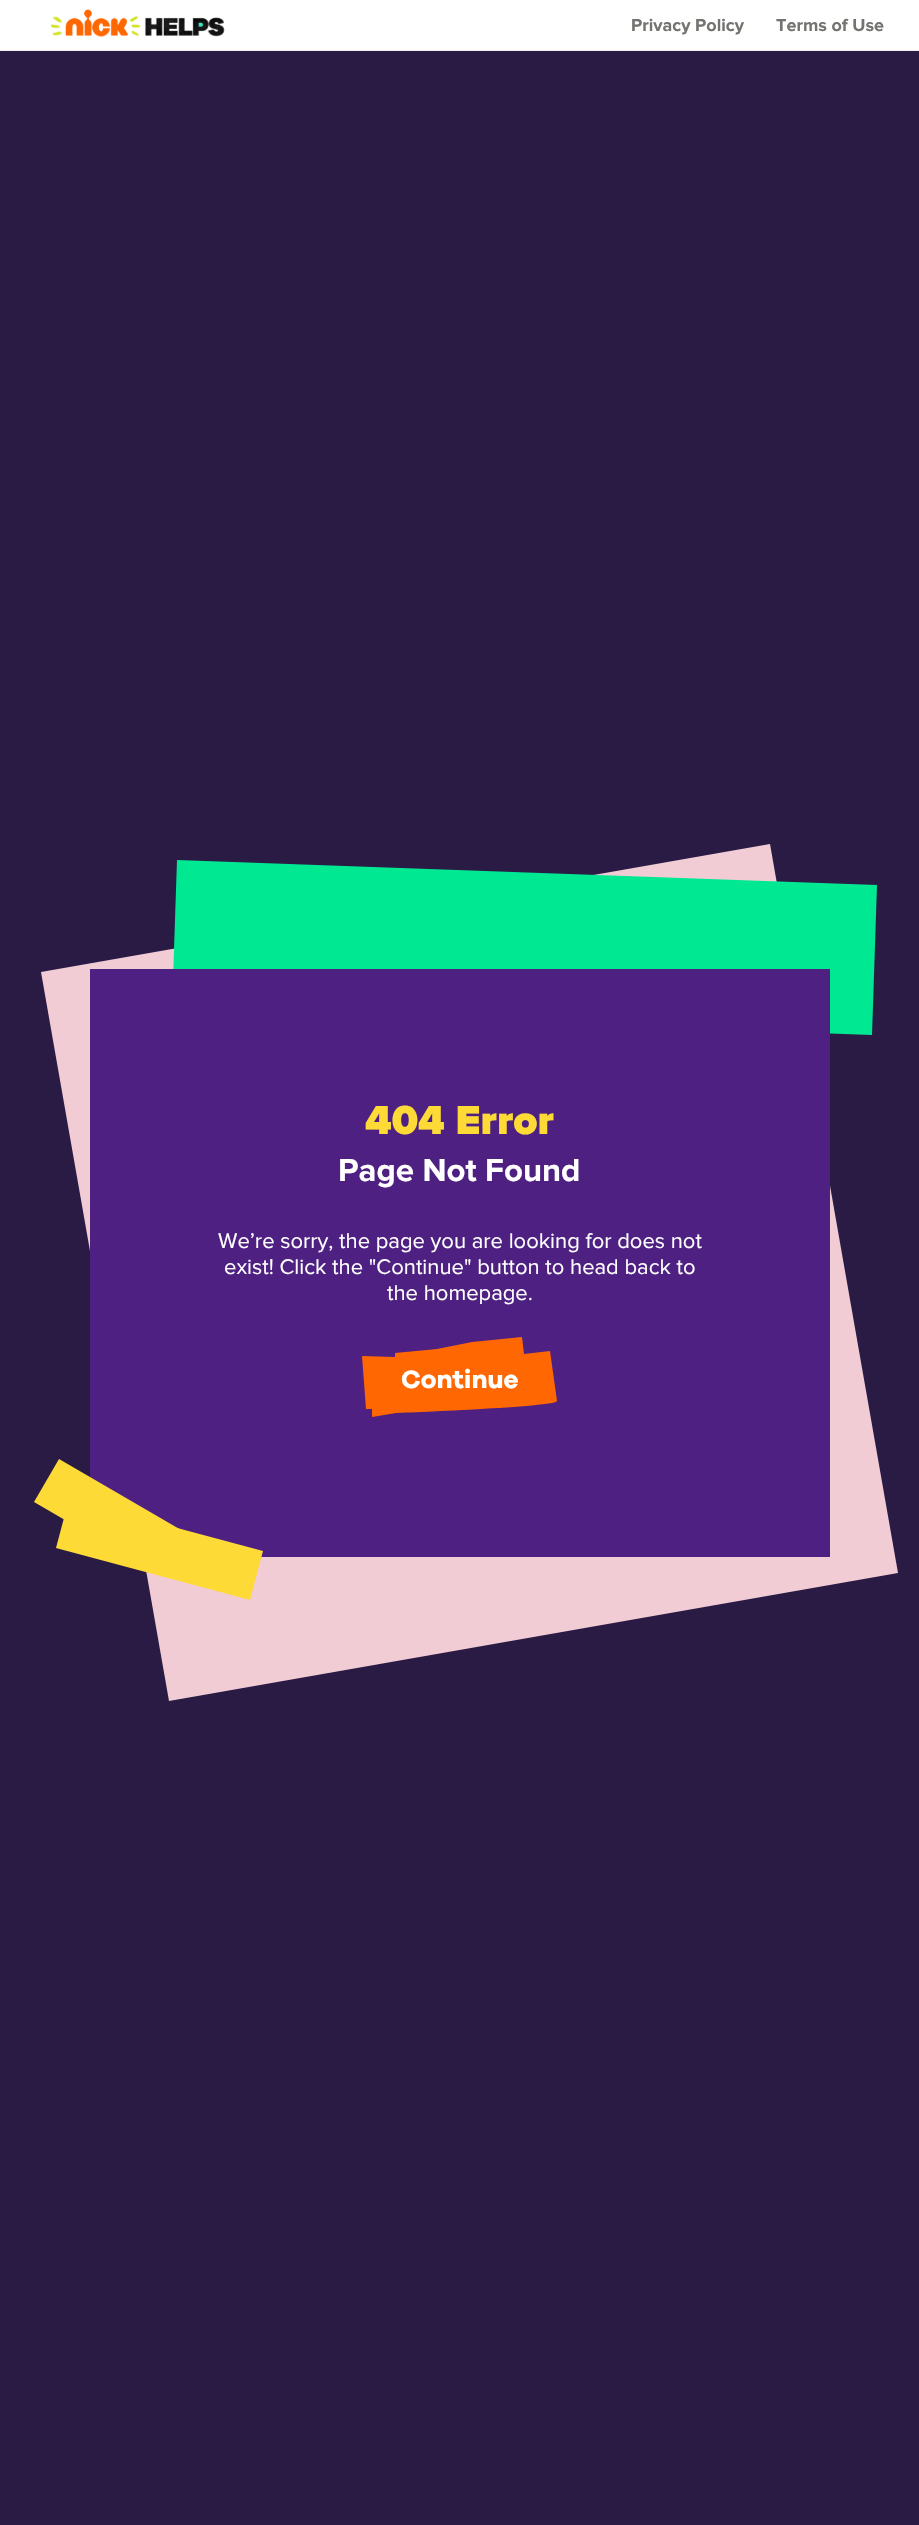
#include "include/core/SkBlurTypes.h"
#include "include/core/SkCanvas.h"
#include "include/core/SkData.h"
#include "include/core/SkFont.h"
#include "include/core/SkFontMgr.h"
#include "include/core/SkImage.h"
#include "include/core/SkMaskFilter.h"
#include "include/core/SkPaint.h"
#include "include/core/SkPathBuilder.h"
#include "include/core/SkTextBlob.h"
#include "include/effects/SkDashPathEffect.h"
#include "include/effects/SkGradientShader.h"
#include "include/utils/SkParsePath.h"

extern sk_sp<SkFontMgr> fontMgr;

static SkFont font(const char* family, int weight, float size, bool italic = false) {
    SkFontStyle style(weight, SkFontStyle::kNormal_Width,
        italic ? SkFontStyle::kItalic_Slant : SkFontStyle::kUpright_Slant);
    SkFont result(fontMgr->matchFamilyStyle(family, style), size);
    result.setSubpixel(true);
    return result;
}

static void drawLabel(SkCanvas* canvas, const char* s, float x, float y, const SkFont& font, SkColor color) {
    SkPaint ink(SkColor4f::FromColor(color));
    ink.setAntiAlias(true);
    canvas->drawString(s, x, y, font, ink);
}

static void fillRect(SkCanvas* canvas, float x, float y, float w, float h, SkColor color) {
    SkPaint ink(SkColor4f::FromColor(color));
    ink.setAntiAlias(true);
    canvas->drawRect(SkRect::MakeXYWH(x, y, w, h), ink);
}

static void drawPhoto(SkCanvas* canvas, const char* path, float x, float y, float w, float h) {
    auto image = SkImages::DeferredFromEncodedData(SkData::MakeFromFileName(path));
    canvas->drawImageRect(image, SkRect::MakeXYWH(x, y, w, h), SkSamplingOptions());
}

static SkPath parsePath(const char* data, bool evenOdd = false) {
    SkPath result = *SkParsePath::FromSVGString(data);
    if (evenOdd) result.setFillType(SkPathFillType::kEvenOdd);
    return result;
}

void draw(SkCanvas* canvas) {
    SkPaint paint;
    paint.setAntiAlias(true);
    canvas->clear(0xFF2A1B45);
    fillRect(canvas, 0, 0, 919, 50, 0xFFFFFFFF);
    fillRect(canvas, 0, 50, 919, 1, 0xFFEEEEEE);
    drawPhoto(canvas, "assets/img1.png", 50, 9, 175, 28);
    SkFont font1 = font("Proxima Nova", 700, 18);
    drawLabel(canvas, "Privacy Policy", 631, 31, font1, 0xFF737370);
    drawLabel(canvas, "Terms of Use", 776, 31, font1, 0xFF737370);
    paint.setColor(0xFFF2CCD5);
    canvas->drawPath(parsePath("M41 972L770 844L898 1573L169 1701Z"), paint);
    paint.setColor(0xFF01E893);
    canvas->drawPath(parsePath("M177 860L877 885L872 1035L172 1010Z"), paint);
    fillRect(canvas, 90, 969, 740, 588, 0xFF4E2082);
    SkFont font2 = font("Proxima Nova", 900, 42);
    drawLabel(canvas, "404 Error", 365, 1134, font2, 0xFFFDDA36);
    SkFont font3 = font("Proxima Nova", 700, 33);
    drawLabel(canvas, "Page Not Found", 338, 1181, font3, 0xFFFFFFFF);
    SkFont font4 = font("Proxima Nova", 400, 22);
    drawLabel(canvas, "We’re sorry, the page you are looking for does not", 218, 1248, font4, 0xFFFFFFFF);
    drawLabel(canvas, "exist! Click the \"Continue\" button to head back to", 224, 1274, font4, 0xFFFFFFFF);
    drawLabel(canvas, "the homepage.", 387, 1300, font4, 0xFFFFFFFF);
    paint.setColor(0xFFFF6702);
    canvas->drawPath(parsePath("M362 1356L366 1409H372V1417L396 1413C396 1413 558 1407 557 1401L550 1351L524 1354L522 1337L472 1342L437 1349L395 1353V1357Z"), paint);
    SkFont font5 = font("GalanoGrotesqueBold", 700, 26);
    drawLabel(canvas, "Continue", 401, 1388, font5, 0xFFFFFFFF);
    paint.setColor(0xFFFDDA36);
    canvas->drawPath(parsePath("M69 1499L263 1551L250 1600L56 1548Z"), paint);
    canvas->drawPath(parsePath("M59 1459L188 1534L163 1577L34 1502Z"), paint);
}
